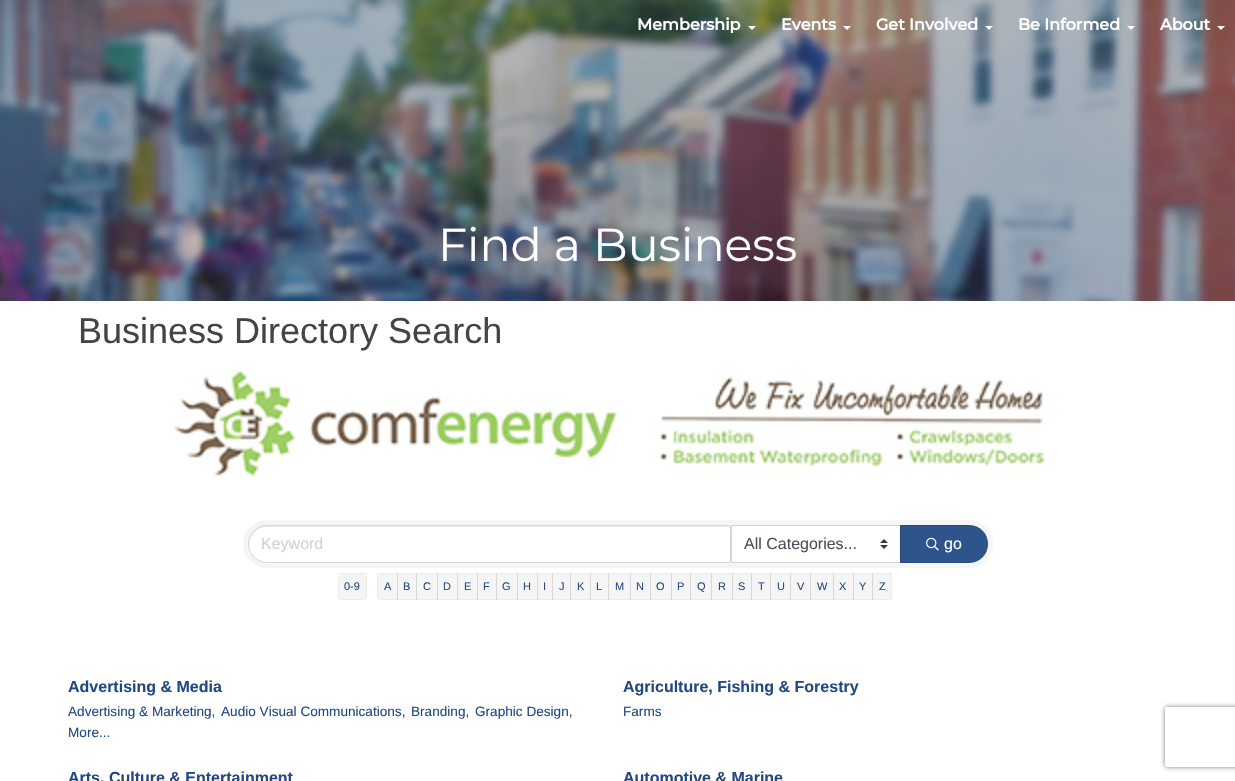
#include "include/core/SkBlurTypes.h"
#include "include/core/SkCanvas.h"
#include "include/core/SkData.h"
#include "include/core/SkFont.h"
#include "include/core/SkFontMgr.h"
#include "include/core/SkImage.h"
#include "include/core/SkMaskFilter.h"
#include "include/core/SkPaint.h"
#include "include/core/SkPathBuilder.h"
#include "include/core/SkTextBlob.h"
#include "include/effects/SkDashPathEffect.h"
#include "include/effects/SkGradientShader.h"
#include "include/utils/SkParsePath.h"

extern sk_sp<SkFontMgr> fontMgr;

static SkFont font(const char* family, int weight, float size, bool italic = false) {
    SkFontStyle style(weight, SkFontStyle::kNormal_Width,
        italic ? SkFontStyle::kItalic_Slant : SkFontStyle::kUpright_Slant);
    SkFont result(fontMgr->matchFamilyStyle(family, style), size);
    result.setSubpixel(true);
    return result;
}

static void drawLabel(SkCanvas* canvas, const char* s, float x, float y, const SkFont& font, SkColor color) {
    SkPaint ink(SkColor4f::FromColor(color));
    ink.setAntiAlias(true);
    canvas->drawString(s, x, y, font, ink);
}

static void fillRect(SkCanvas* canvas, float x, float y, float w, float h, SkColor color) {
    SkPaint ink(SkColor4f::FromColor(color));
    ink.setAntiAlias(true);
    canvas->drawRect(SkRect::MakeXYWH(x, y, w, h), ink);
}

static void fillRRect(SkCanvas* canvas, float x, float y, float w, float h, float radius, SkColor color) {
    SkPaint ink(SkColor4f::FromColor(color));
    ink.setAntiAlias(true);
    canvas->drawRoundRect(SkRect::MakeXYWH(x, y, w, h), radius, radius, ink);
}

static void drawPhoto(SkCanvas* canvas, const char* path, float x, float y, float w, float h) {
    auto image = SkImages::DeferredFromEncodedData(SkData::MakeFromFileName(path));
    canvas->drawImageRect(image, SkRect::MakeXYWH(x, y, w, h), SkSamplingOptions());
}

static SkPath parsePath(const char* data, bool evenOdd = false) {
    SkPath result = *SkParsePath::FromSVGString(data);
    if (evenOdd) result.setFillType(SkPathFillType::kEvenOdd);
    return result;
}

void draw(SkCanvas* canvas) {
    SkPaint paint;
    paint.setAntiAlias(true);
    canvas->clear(0xFFFFFFFF);
    drawPhoto(canvas, "assets/img1.png", 0, 0, 1235, 301);
    SkFont font1 = font("Montserrat", 700, 16);
    drawLabel(canvas, "Membership", 637, 30, font1, 0xFFFFFFFF);
    paint.setColor(0xFFFFFFFF);
    canvas->drawPath(parsePath("M748 26H756L752 30Z"), paint);
    drawLabel(canvas, "Events", 781, 30, font1, 0xFFFFFFFF);
    canvas->drawPath(parsePath("M843 26H851L847 30Z"), paint);
    drawLabel(canvas, "Get Involved", 876, 30, font1, 0xFFFFFFFF);
    canvas->drawPath(parsePath("M985 26H993L989 30Z"), paint);
    drawLabel(canvas, "Be Informed", 1018, 30, font1, 0xFFFFFFFF);
    canvas->drawPath(parsePath("M1127 26H1135L1131 30Z"), paint);
    drawLabel(canvas, "About", 1160, 30, font1, 0xFFFFFFFF);
    canvas->drawPath(parsePath("M1217 26H1225L1221 30Z"), paint);
    SkFont font2 = font("Montserrat", 400, 46);
    drawLabel(canvas, "Find a Business", 438, 261, font2, 0xFFFFFFFF);
    SkFont font3 = font("Liberation Sans", 400, 36);
    drawLabel(canvas, "Business Directory Search", 78, 343, font3, 0xFF444444);
    drawPhoto(canvas, "assets/img2.png", 174, 370, 871, 107);
    fillRRect(canvas, 243, 520, 750, 48, 24, 0xFFF5F5F5);
    canvas->drawPath(parsePath("M267 526H728C729 526 730 527 730 528V560C730 561 729 562 728 562H267C257 562 249 554 249 544C249 534 257 526 267 526Z"), paint);
    paint.setColor(0x12000000);
    canvas->drawPath(parsePath("M267 527H728C729 527 730 528 730 529C730 528 730 526 728 526H267C257 526 249 534 249 544C249 535 257 527 267 527Z"), paint);
    paint.setStroke(true);
    paint.setStrokeWidth(1);
    paint.setColor(0x1F000000);
    canvas->drawPath(parsePath("M267 525.5H728C729.5 525.5 730.5 526.5 730.5 528V560C730.5 561.5 729.5 562.5 728 562.5H267C257 562.5 248.5 554 248.5 544C248.5 534 257 525.5 267 525.5Z"), paint);
    SkFont font4 = font("Liberation Sans", 400, 16);
    drawLabel(canvas, "Keyword", 261, 549, font4, 0xFFD2D2D2);
    fillRect(canvas, 732, 526, 168, 36, 0xFFFFFFFF);
    drawPhoto(canvas, "assets/img3.png", 880, 539, 8, 10);
    paint.setColor(0xFFCED4DA);
    canvas->drawRect(SkRect::MakeXYWH(731.5f, 525.5f, 169, 37), paint);
    drawLabel(canvas, "All Categories...", 744, 549, font4, 0xFF495057);
    paint.setStroke(false);
    paint.setColor(0xFF2D548B);
    canvas->drawPath(parsePath("M900 525H969C979.5 525 988 533.5 988 544C988 554.5 979.5 563 969 563H900Z"), paint);
    paint.setStroke(true);
    paint.setColor(0x1F000000);
    canvas->drawPath(parsePath("M900.5 525.5H969C979 525.5 987.5 534 987.5 544C987.5 554 979 562.5 969 562.5H900.5Z"), paint);
    drawPhoto(canvas, "assets/img4.png", 926, 537, 13, 14);
    drawLabel(canvas, "go", 944, 549, font4, 0xFFFFFFFF);
    fillRRect(canvas, 338, 573, 29, 27, 5, 0xFFF5F5F5);
    paint.setColor(0x0A000000);
    canvas->drawRect(SkRect::MakeXYWH(338.5f, 573.5f, 28, 26), paint);
    SkFont font5 = font("Liberation Sans", 400, 11);
    drawLabel(canvas, "0-9", 344, 590, font5, 0xFF224884);
    paint.setStroke(false);
    paint.setColor(0xFFF5F5F5);
    canvas->drawPath(parsePath("M382 573H398V600H382C379 600 377 598 377 595V578C377 575 379 573 382 573Z"), paint);
    paint.setStroke(true);
    paint.setColor(0x0A000000);
    canvas->drawRect(SkRect::MakeXYWH(377.5f, 573.5f, 20, 26), paint);
    drawLabel(canvas, "A", 384, 590, font5, 0xFF224884);
    fillRect(canvas, 397, 573, 20, 27, 0x0A000000);
    canvas->drawRect(SkRect::MakeXYWH(397.5f, 573.5f, 19, 26), paint);
    drawLabel(canvas, "B", 403, 590, font5, 0xFF224884);
    fillRect(canvas, 416, 573, 22, 27, 0x0A000000);
    canvas->drawRect(SkRect::MakeXYWH(416.5f, 573.5f, 21, 26), paint);
    drawLabel(canvas, "C", 423, 590, font5, 0xFF224884);
    fillRect(canvas, 437, 573, 21, 27, 0x0A000000);
    canvas->drawRect(SkRect::MakeXYWH(437.5f, 573.5f, 20, 26), paint);
    drawLabel(canvas, "D", 443, 590, font5, 0xFF224884);
    fillRect(canvas, 457, 573, 21, 27, 0x0A000000);
    canvas->drawRect(SkRect::MakeXYWH(457.5f, 573.5f, 20, 26), paint);
    drawLabel(canvas, "E", 464, 590, font5, 0xFF224884);
    fillRect(canvas, 477, 573, 20, 27, 0x0A000000);
    canvas->drawRect(SkRect::MakeXYWH(477.5f, 573.5f, 19, 26), paint);
    drawLabel(canvas, "F", 483, 590, font5, 0xFF224884);
    fillRect(canvas, 496, 573, 22, 27, 0x0A000000);
    canvas->drawRect(SkRect::MakeXYWH(496.5f, 573.5f, 21, 26), paint);
    drawLabel(canvas, "G", 502, 590, font5, 0xFF224884);
    fillRect(canvas, 517, 573, 21, 27, 0x0A000000);
    canvas->drawRect(SkRect::MakeXYWH(517.5f, 573.5f, 20, 26), paint);
    drawLabel(canvas, "H", 523, 590, font5, 0xFF224884);
    fillRect(canvas, 537, 573, 16, 27, 0x0A000000);
    canvas->drawRect(SkRect::MakeXYWH(537.5f, 573.5f, 15, 26), paint);
    drawLabel(canvas, "I", 543, 590, font5, 0xFF224884);
    fillRect(canvas, 552, 573, 19, 27, 0x0A000000);
    canvas->drawRect(SkRect::MakeXYWH(552.5f, 573.5f, 18, 26), paint);
    drawLabel(canvas, "J", 559, 590, font5, 0xFF224884);
    fillRect(canvas, 570, 573, 21, 27, 0x0A000000);
    canvas->drawRect(SkRect::MakeXYWH(570.5f, 573.5f, 20, 26), paint);
    drawLabel(canvas, "K", 577, 590, font5, 0xFF224884);
    fillRect(canvas, 590, 573, 19, 27, 0x0A000000);
    canvas->drawRect(SkRect::MakeXYWH(590.5f, 573.5f, 18, 26), paint);
    drawLabel(canvas, "L", 596, 590, font5, 0xFF224884);
    fillRect(canvas, 608, 573, 23, 27, 0x0A000000);
    canvas->drawRect(SkRect::MakeXYWH(608.5f, 573.5f, 22, 26), paint);
    drawLabel(canvas, "M", 615, 590, font5, 0xFF224884);
    fillRect(canvas, 630, 573, 21, 27, 0x0A000000);
    canvas->drawRect(SkRect::MakeXYWH(630.5f, 573.5f, 20, 26), paint);
    drawLabel(canvas, "N", 636, 590, font5, 0xFF224884);
    fillRect(canvas, 650, 573, 22, 27, 0x0A000000);
    canvas->drawRect(SkRect::MakeXYWH(650.5f, 573.5f, 21, 26), paint);
    drawLabel(canvas, "O", 656, 590, font5, 0xFF224884);
    fillRect(canvas, 671, 573, 20, 27, 0x0A000000);
    canvas->drawRect(SkRect::MakeXYWH(671.5f, 573.5f, 19, 26), paint);
    drawLabel(canvas, "P", 677, 590, font5, 0xFF224884);
    fillRect(canvas, 690, 573, 22, 27, 0x0A000000);
    canvas->drawRect(SkRect::MakeXYWH(690.5f, 573.5f, 21, 26), paint);
    drawLabel(canvas, "Q", 697, 590, font5, 0xFF224884);
    fillRect(canvas, 711, 573, 22, 27, 0x0A000000);
    canvas->drawRect(SkRect::MakeXYWH(711.5f, 573.5f, 21, 26), paint);
    drawLabel(canvas, "R", 718, 590, font5, 0xFF224884);
    fillRect(canvas, 732, 573, 20, 27, 0x0A000000);
    canvas->drawRect(SkRect::MakeXYWH(732.5f, 573.5f, 19, 26), paint);
    drawLabel(canvas, "S", 738, 590, font5, 0xFF224884);
    fillRect(canvas, 751, 573, 20, 27, 0x0A000000);
    canvas->drawRect(SkRect::MakeXYWH(751.5f, 573.5f, 19, 26), paint);
    drawLabel(canvas, "T", 758, 590, font5, 0xFF224884);
    fillRect(canvas, 770, 573, 21, 27, 0x0A000000);
    canvas->drawRect(SkRect::MakeXYWH(770.5f, 573.5f, 20, 26), paint);
    drawLabel(canvas, "U", 777, 590, font5, 0xFF224884);
    fillRect(canvas, 790, 573, 21, 27, 0x0A000000);
    canvas->drawRect(SkRect::MakeXYWH(790.5f, 573.5f, 20, 26), paint);
    drawLabel(canvas, "V", 797, 590, font5, 0xFF224884);
    fillRect(canvas, 810, 573, 24, 27, 0x0A000000);
    canvas->drawRect(SkRect::MakeXYWH(810.5f, 573.5f, 23, 26), paint);
    drawLabel(canvas, "W", 817, 590, font5, 0xFF224884);
    fillRect(canvas, 833, 573, 21, 27, 0x0A000000);
    canvas->drawRect(SkRect::MakeXYWH(833.5f, 573.5f, 20, 26), paint);
    drawLabel(canvas, "X", 839, 590, font5, 0xFF224884);
    fillRect(canvas, 853, 573, 20, 27, 0x0A000000);
    canvas->drawRect(SkRect::MakeXYWH(853.5f, 573.5f, 19, 26), paint);
    drawLabel(canvas, "Y", 859, 590, font5, 0xFF224884);
    fillRect(canvas, 872, 573, 20, 27, 0x0A000000);
    canvas->drawRect(SkRect::MakeXYWH(872.5f, 573.5f, 19, 26), paint);
    drawLabel(canvas, "Z", 879, 590, font5, 0xFF224884);
    SkFont font6 = font("Liberation Sans", 700, 16);
    drawLabel(canvas, "Advertising & Media", 68, 692, font6, 0xFF224884);
    SkFont font7 = font("Liberation Sans", 400, 13.6f);
    drawLabel(canvas, "Advertising & Marketing,", 68, 716, font7, 0xFF224884);
    drawLabel(canvas, "Audio Visual Communications,", 221, 716, font7, 0xFF224884);
    drawLabel(canvas, "Branding,", 411, 716, font7, 0xFF224884);
    drawLabel(canvas, "Graphic Design,", 475, 716, font7, 0xFF224884);
    drawLabel(canvas, "More...", 68, 737, font7, 0xFF224884);
    drawLabel(canvas, "Agriculture, Fishing & Forestry", 623, 692, font6, 0xFF224884);
    drawLabel(canvas, "Farms", 623, 716, font7, 0xFF224884);
    drawLabel(canvas, "Arts, Culture & Entertainment", 68, 783, font6, 0xFF224884);
    drawLabel(canvas, "Automotive & Marine", 623, 783, font6, 0xFF224884);
    canvas->save();
    canvas->clipPath(parsePath("M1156 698H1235V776H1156ZM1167 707H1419C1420 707 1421 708 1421 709V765C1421 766 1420 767 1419 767H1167C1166 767 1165 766 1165 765V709C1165 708 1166 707 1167 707Z", true), true);
    paint.setStroke(false);
    paint.setColor(0xFF808080);
    paint.setMaskFilter(SkMaskFilter::MakeBlur(kNormal_SkBlurStyle, 2.5f));
    canvas->drawRoundRect(SkRect::MakeXYWH(1165, 707, 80, 60), 2, 2, paint);
    paint.setMaskFilter(nullptr);
    canvas->restore();
}
